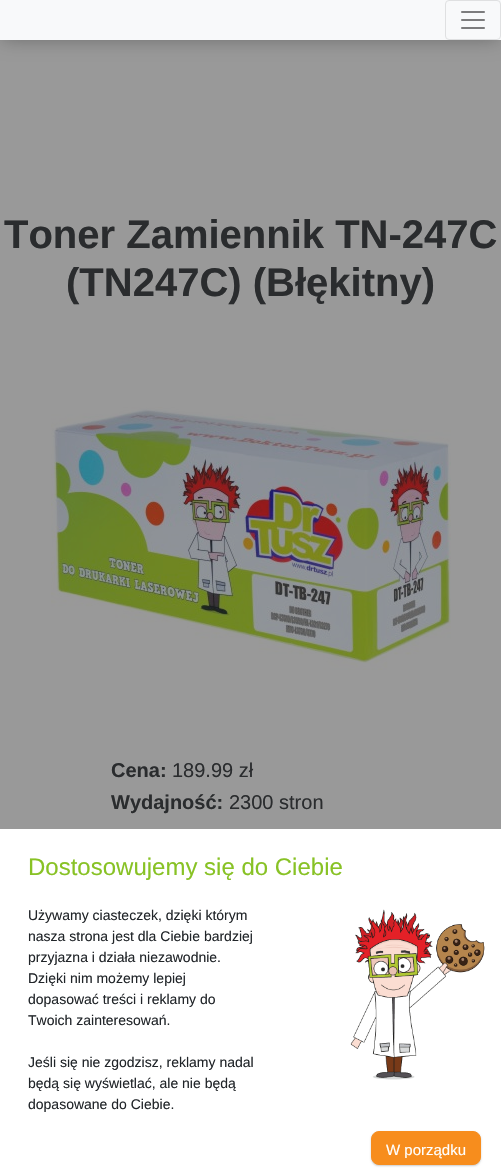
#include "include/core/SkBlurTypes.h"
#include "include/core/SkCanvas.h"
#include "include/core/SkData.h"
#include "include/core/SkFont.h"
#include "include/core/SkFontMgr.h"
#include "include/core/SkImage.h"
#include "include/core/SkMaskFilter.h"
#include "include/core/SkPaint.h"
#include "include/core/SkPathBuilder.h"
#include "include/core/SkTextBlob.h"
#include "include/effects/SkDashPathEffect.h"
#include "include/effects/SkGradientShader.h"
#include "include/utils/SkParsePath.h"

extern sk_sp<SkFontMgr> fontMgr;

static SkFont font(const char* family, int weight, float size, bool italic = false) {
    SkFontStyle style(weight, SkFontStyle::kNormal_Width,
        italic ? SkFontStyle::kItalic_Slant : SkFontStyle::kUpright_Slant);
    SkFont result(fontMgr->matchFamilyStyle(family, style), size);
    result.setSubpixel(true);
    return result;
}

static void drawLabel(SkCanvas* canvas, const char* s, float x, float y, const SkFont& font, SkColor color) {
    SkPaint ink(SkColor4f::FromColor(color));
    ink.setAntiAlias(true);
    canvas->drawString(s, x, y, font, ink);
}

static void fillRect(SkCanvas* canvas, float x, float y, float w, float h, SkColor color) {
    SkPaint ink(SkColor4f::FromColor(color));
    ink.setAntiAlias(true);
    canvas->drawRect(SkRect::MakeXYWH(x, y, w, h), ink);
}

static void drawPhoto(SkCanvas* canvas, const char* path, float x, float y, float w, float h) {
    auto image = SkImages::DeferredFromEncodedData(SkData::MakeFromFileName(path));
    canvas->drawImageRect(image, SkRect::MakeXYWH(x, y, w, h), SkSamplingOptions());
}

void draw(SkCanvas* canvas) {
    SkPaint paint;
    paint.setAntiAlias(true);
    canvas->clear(0xFF999999);
    paint.setColor(0x57000000);
    paint.setMaskFilter(SkMaskFilter::MakeBlur(kNormal_SkBlurStyle, 10));
    canvas->drawRect(SkRect::MakeXYWH(2, 2, 497, 36), paint);
    paint.setMaskFilter(nullptr);
    fillRect(canvas, 0, 0, 501, 40, 0xFFF8F9FA);
    paint.setStroke(true);
    paint.setStrokeWidth(1);
    paint.setColor(0xFFDFE0E1);
    canvas->drawRoundRect(SkRect::MakeXYWH(445.5f, 0.5f, 55, 39), 3.5f, 3.5f, paint);
    drawPhoto(canvas, "assets/img1.png", 461, 11, 24, 18);
    SkFont font1 = font("Liberation Sans", 700, 40);
    drawLabel(canvas, "Toner Zamiennik TN-247C", 4, 248, font1, 0xFF2A2C2E);
    drawLabel(canvas, "(TN247C) (Błękitny)", 66, 296, font1, 0xFF2A2C2E);
    drawPhoto(canvas, "assets/img2.png", 51, 407, 400, 263);
    SkFont font2 = font("Liberation Sans", 700, 20);
    drawLabel(canvas, "Cena:", 111, 777, font2, 0xFF2A2C2E);
    SkFont font3 = font("Liberation Sans", 400, 20);
    drawLabel(canvas, "189.99 zł", 172, 777, font3, 0xFF2A2C2E);
    drawLabel(canvas, "Wydajność:", 111, 809, font2, 0xFF2A2C2E);
    drawLabel(canvas, "2300 stron", 229, 809, font3, 0xFF2A2C2E);
    fillRect(canvas, 0, 829, 501, 342, 0xFFFFFFFF);
    SkFont font4 = font("Liberation Sans", 400, 24);
    drawLabel(canvas, "Dostosowujemy się do Ciebie", 28, 875, font4, 0xFF88C225);
    SkFont font5 = font("Liberation Sans", 400, 14);
    drawLabel(canvas, "Używamy ciasteczek, dzięki którym", 28, 920, font5, 0xFF212529);
    drawLabel(canvas, "nasza strona jest dla Ciebie bardziej", 28, 941, font5, 0xFF212529);
    drawLabel(canvas, "przyjazna i działa niezawodnie.", 28, 962, font5, 0xFF212529);
    drawLabel(canvas, "Dzięki nim możemy lepiej", 28, 983, font5, 0xFF212529);
    drawLabel(canvas, "dopasować treści i reklamy do", 28, 1004, font5, 0xFF212529);
    drawLabel(canvas, "Twoich zainteresowań.", 28, 1025, font5, 0xFF212529);
    drawLabel(canvas, "Jeśli się nie zgodzisz, reklamy nadal", 28, 1067, font5, 0xFF212529);
    drawLabel(canvas, "będą się wyświetlać, ale nie będą", 28, 1088, font5, 0xFF212529);
    drawLabel(canvas, "dopasowane do Ciebie.", 28, 1109, font5, 0xFF212529);
    drawPhoto(canvas, "assets/img3.png", 350, 909, 135, 171);
    paint.setStroke(false);
    paint.setColor(0x33000000);
    paint.setMaskFilter(SkMaskFilter::MakeBlur(kNormal_SkBlurStyle, 1));
    canvas->drawRoundRect(SkRect::MakeXYWH(371, 1132, 110, 34), 8, 8, paint);
    paint.setMaskFilter(nullptr);
    paint.setColor(0xFFF78D1D);
    canvas->drawRoundRect(SkRect::MakeXYWH(371.5f, 1131.5f, 109, 33), 7.5f, 7.5f, paint);
    paint.setStroke(true);
    canvas->drawRoundRect(SkRect::MakeXYWH(371.5f, 1131.5f, 109, 33), 7.5f, 7.5f, paint);
    SkFont font6 = font("Liberation Sans", 400, 15);
    drawLabel(canvas, "W porządku", 386, 1155, font6, 0xFFFFFFFF);
}
